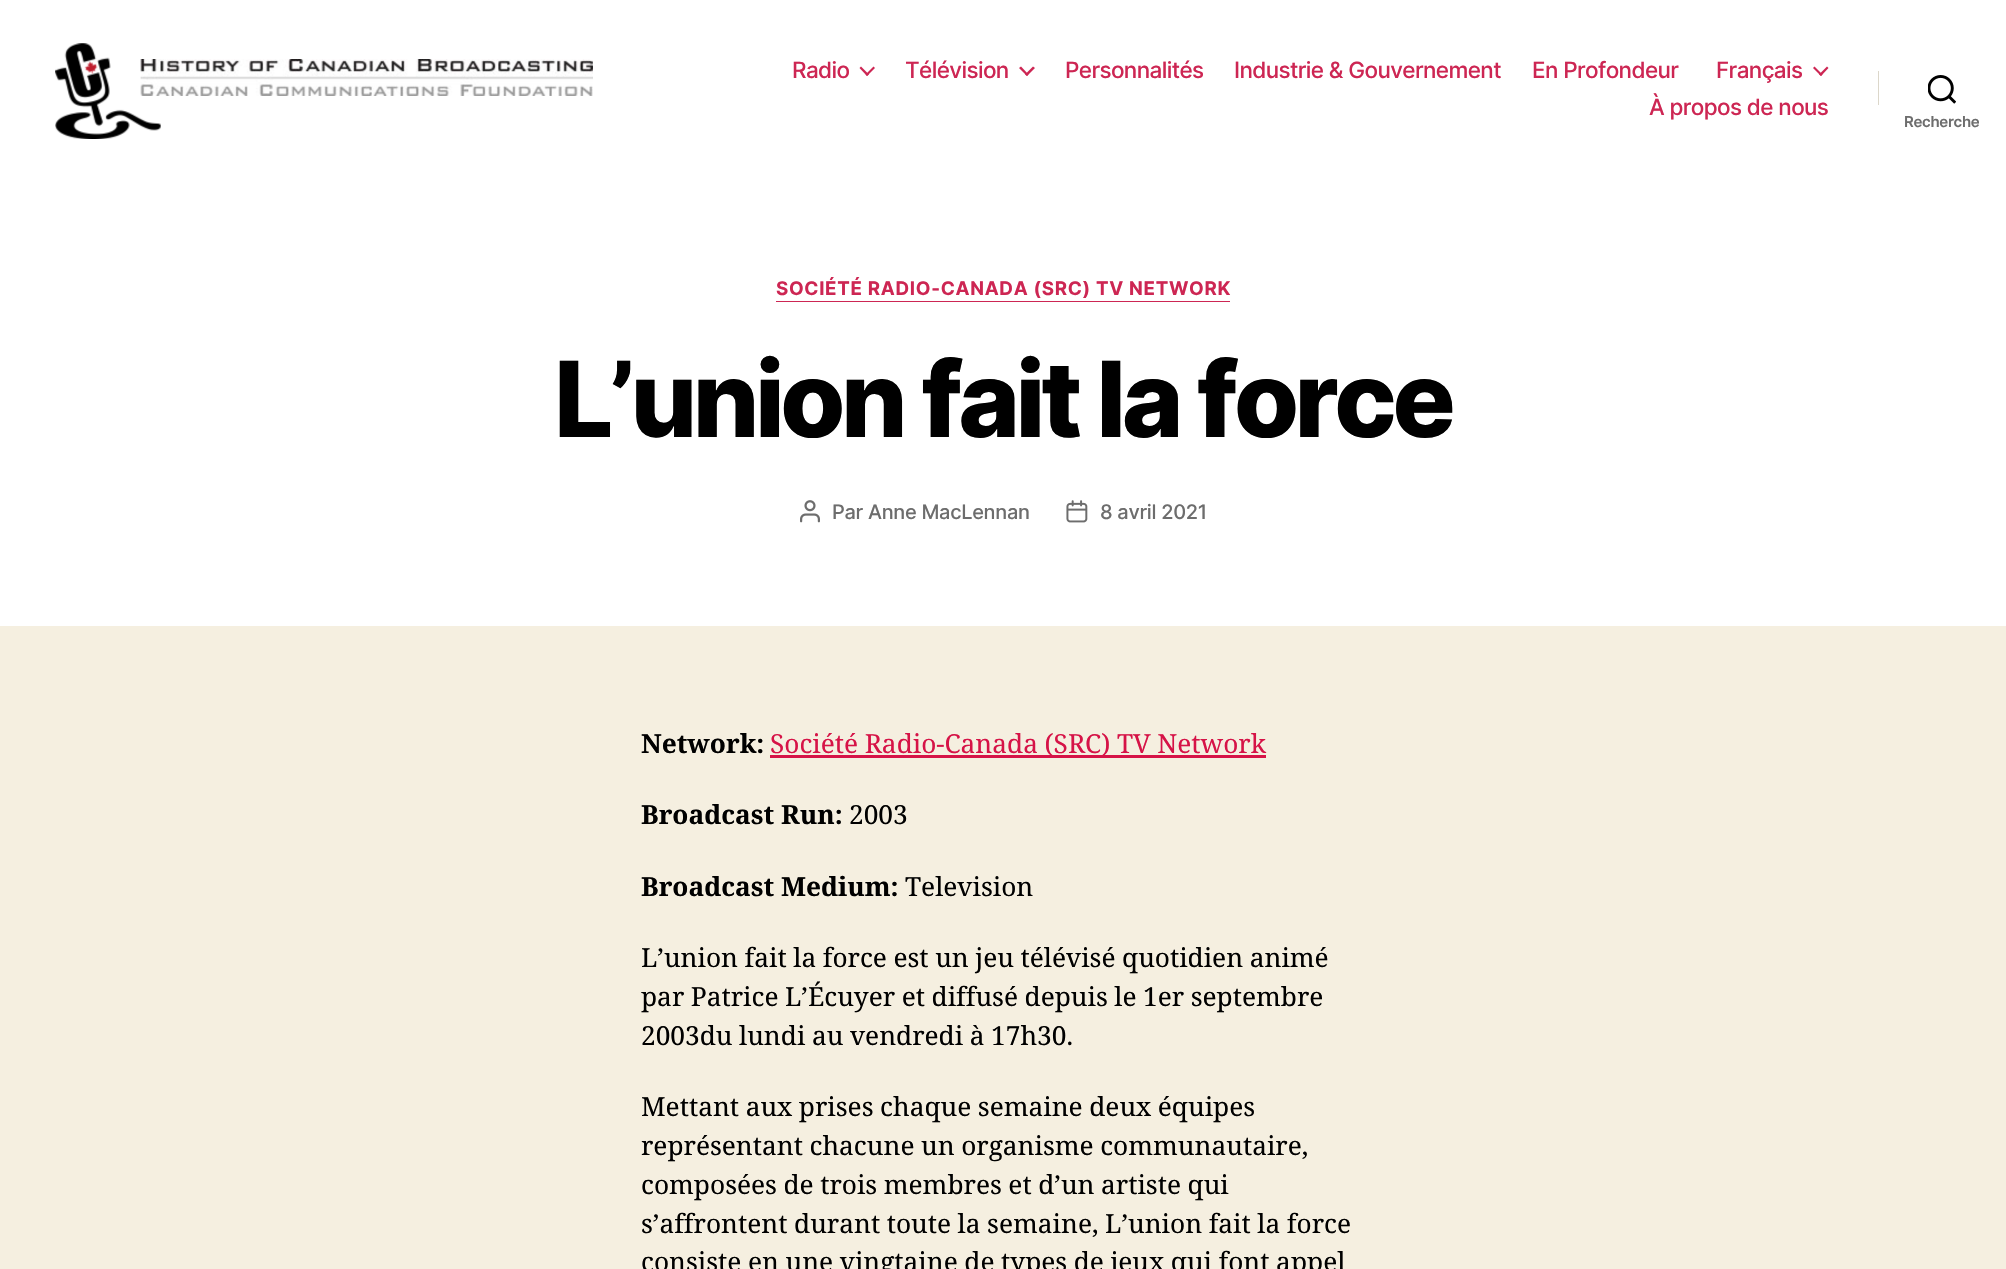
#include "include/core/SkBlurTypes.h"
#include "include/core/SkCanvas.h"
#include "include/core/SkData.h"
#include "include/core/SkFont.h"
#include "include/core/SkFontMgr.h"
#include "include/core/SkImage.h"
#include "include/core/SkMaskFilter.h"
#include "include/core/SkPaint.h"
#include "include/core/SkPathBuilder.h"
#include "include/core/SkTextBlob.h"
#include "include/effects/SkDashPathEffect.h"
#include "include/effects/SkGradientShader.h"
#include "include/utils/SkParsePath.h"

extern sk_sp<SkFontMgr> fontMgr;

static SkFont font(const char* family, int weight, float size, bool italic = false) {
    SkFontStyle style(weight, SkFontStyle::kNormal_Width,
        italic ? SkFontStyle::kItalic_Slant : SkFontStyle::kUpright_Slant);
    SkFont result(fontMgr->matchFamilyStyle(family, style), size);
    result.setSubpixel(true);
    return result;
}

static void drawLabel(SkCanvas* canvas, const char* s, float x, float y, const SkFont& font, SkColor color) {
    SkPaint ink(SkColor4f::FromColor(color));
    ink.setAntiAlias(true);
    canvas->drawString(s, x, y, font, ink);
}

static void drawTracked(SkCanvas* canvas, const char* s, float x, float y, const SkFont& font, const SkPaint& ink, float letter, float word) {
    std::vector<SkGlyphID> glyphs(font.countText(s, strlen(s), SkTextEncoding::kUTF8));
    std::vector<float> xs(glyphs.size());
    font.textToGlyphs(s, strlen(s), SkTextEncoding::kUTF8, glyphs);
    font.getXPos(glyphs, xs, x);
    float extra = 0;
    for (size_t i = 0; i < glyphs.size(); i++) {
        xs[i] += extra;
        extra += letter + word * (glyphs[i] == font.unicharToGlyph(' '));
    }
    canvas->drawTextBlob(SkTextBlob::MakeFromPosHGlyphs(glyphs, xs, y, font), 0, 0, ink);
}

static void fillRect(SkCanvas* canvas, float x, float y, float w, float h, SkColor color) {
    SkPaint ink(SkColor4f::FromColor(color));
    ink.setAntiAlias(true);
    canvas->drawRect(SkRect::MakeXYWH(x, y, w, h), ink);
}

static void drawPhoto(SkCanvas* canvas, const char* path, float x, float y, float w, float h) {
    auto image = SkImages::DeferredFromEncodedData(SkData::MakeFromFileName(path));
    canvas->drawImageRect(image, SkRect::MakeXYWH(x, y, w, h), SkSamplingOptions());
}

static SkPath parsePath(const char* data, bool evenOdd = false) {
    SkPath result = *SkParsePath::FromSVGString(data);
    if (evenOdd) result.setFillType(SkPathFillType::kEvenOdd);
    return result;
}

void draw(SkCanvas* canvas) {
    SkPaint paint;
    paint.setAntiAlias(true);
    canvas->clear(0xFFF5EFE0);
    fillRect(canvas, 0, 0, 2006, 626, 0xFFFFFFFF);
    drawPhoto(canvas, "assets/img1.png", 55, 43, 538, 96);
    SkFont font1 = font("Inter", 500, 22.5f);
    paint.setColor(0xFFCD2653);
    drawTracked(canvas, "Radio", 792, 78, font1, paint, -0.6f, 0);
    canvas->drawPath(parsePath("M859.5 68L861 66.5L869 74.5L867 76Z"), paint);
    canvas->drawPath(parsePath("M865.5 74.5L873.5 66.5L875 68L867 76Z"), paint);
    drawTracked(canvas, "Télévision", 905, 78, font1, paint, -0.6f, 0);
    canvas->drawPath(parsePath("M1019 68L1021 66.5L1028.5 74.5L1027 76Z"), paint);
    canvas->drawPath(parsePath("M1025 74.5L1033 66.5L1035 68L1027 76Z"), paint);
    drawTracked(canvas, "Personnalités", 1065, 78, font1, paint, -0.6f, 0);
    drawTracked(canvas, "Industrie & Gouvernement", 1234, 78, font1, paint, -0.6f, 0);
    drawTracked(canvas, "En Profondeur", 1532, 78, font1, paint, -0.6f, 0);
    drawTracked(canvas, "Français", 1716, 78, font1, paint, -0.6f, 0);
    canvas->drawPath(parsePath("M1813 68L1814.5 66.5L1822.5 74.5L1821 76Z"), paint);
    canvas->drawPath(parsePath("M1819 74.5L1827 66.5L1828.5 68L1821 76Z"), paint);
    drawTracked(canvas, "À propos de nous", 1649, 115, font1, paint, -0.6f, 0);
    fillRect(canvas, 1878, 71, 1, 34, 0xFFDCD7CA);
    drawPhoto(canvas, "assets/img2.png", 1928, 75, 28, 29);
    SkFont font2 = font("Inter", 600, 15);
    paint.setColor(0xFF6D6D6D);
    drawTracked(canvas, "Recherche", 1904, 127, font2, paint, -0.3f, 0);
    fillRect(canvas, 776, 301, 454, 1, 0xFFCD2653);
    SkFont font3 = font("Inter", 700, 18.75f);
    paint.setColor(0xFFCD2653);
    drawTracked(canvas, "SOCIÉTÉ RADIO-CANADA (SRC) TV NETWORK", 776, 295, font3, paint, 0.7f, 0);
    SkFont font4 = font("Inter", 800, 105);
    paint.setColor(0xFF000000);
    drawTracked(canvas, "L’union fait la force", 554, 437, font4, paint, -4.4f, 0);
    drawPhoto(canvas, "assets/img3.png", 800, 500, 20, 23);
    SkFont font5 = font("Inter", 500, 20);
    paint.setColor(0xFF6D6D6D);
    drawTracked(canvas, "Par Anne MacLennan", 832, 519, font5, paint, -0.3f, 0);
    drawPhoto(canvas, "assets/img4.png", 1066, 500, 22, 23);
    drawTracked(canvas, "8 avril 2021", 1100, 519, font5, paint, -0.3f, 0);
    SkFont font6 = font("Noto Serif", 700, 26.25f);
    drawLabel(canvas, "Network:", 641, 753, font6, 0xFF000000);
    fillRect(canvas, 770, 755, 496, 3, 0xFFD61347);
    SkFont font7 = font("Noto Serif", 400, 26.25f);
    paint.setColor(0xFFD61347);
    drawTracked(canvas, "Société Radio-Canada (SRC) TV Network", 770, 753, font7, paint, 0, -0.25f);
    drawLabel(canvas, "Broadcast Run:", 641, 824, font6, 0xFF000000);
    drawLabel(canvas, "2003", 849, 824, font7, 0xFF000000);
    drawLabel(canvas, "Broadcast Medium:", 641, 896, font6, 0xFF000000);
    drawLabel(canvas, "Television", 905, 896, font7, 0xFF000000);
    paint.setColor(0xFF000000);
    drawTracked(canvas, "L’union fait la force est un jeu télévisé quotidien animé", 641, 967, font7, paint, 0, -0.25f);
    drawTracked(canvas, "par Patrice L’Écuyer et diffusé depuis le 1er septembre", 641, 1006, font7, paint, 0, -0.25f);
    drawTracked(canvas, "2003du lundi au vendredi à 17h30.", 641, 1045, font7, paint, 0, -0.25f);
    drawTracked(canvas, "Mettant aux prises chaque semaine deux équipes", 641, 1116, font7, paint, 0, -0.25f);
    drawTracked(canvas, "représentant chacune un organisme communautaire,", 641, 1155, font7, paint, 0, -0.25f);
    drawTracked(canvas, "composées de trois membres et d’un artiste qui", 641, 1194, font7, paint, 0, -0.25f);
    drawTracked(canvas, "s’affrontent durant toute la semaine, L’union fait la force", 641, 1233, font7, paint, 0, -0.25f);
    drawTracked(canvas, "consiste en une vingtaine de types de jeux qui font appel", 641, 1271, font7, paint, 0, -0.25f);
}
